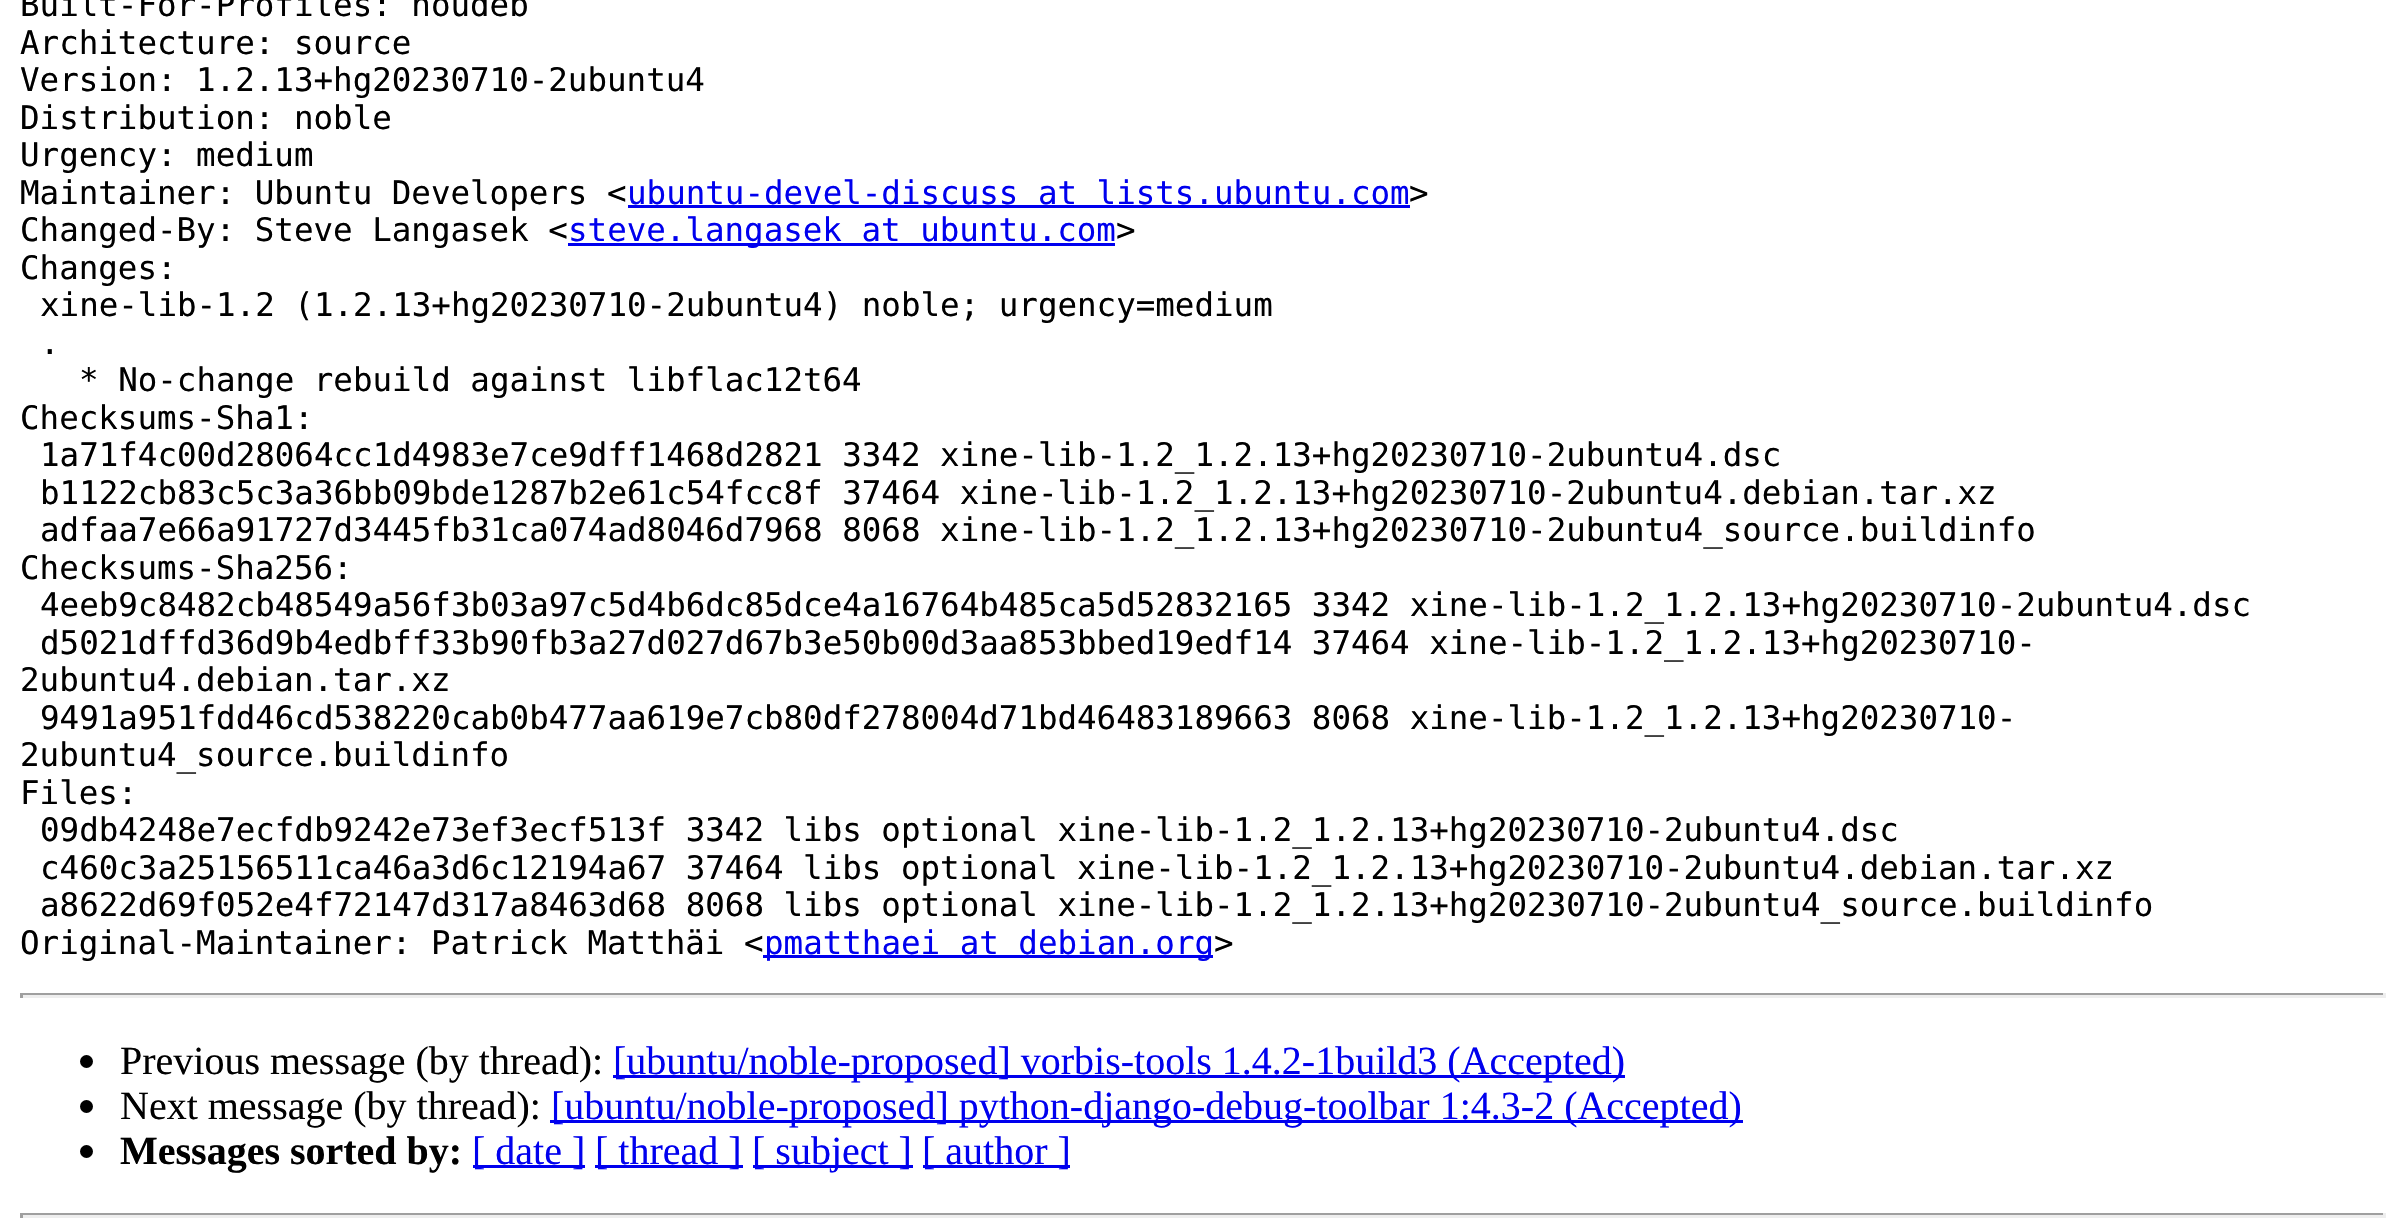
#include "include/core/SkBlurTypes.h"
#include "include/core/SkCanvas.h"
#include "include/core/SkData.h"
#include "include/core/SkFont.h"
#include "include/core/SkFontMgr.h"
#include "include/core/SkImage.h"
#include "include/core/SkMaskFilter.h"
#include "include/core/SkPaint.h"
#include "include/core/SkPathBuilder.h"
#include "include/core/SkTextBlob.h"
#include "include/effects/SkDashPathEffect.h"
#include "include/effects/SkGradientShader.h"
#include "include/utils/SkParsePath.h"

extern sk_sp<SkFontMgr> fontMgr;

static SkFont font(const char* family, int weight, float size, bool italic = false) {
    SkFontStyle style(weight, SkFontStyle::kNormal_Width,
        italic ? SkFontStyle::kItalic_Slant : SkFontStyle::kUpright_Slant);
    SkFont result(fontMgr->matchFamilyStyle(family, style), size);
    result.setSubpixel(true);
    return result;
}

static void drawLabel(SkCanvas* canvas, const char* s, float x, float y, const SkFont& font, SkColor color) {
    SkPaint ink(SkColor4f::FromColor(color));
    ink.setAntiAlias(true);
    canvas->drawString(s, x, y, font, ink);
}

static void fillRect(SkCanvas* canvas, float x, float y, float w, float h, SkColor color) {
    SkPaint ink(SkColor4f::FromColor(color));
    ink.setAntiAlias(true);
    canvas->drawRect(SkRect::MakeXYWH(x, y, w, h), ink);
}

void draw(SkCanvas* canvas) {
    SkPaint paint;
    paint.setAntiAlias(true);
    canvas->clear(0xFFFFFFFF);
    SkFont font1 = font("DejaVu Sans Mono", 400, 32.5f);
    drawLabel(canvas, "Built-For-Profiles: noudeb", 20, 16, font1, 0xFF000000);
    drawLabel(canvas, "Architecture: source", 20, 54, font1, 0xFF000000);
    drawLabel(canvas, "Version: 1.2.13+hg20230710-2ubuntu4", 20, 91, font1, 0xFF000000);
    drawLabel(canvas, "Distribution: noble", 20, 129, font1, 0xFF000000);
    drawLabel(canvas, "Urgency: medium", 20, 166, font1, 0xFF000000);
    drawLabel(canvas, "Maintainer: Ubuntu Developers <", 20, 204, font1, 0xFF000000);
    drawLabel(canvas, "ubuntu-devel-discuss at lists.ubuntu.com", 627, 204, font1, 0xFF0000EE);
    fillRect(canvas, 628, 205, 782, 3, 0xFF0000EE);
    drawLabel(canvas, ">", 1409, 204, font1, 0xFF000000);
    drawLabel(canvas, "Changed-By: Steve Langasek <", 20, 241, font1, 0xFF000000);
    fillRect(canvas, 568, 243, 547, 3, 0xFF0000EE);
    drawLabel(canvas, "steve.langasek at ubuntu.com", 568, 241, font1, 0xFF0000EE);
    drawLabel(canvas, ">", 1116, 241, font1, 0xFF000000);
    drawLabel(canvas, "Changes:", 20, 279, font1, 0xFF000000);
    drawLabel(canvas, "xine-lib-1.2 (1.2.13+hg20230710-2ubuntu4) noble; urgency=medium", 40, 316, font1, 0xFF000000);
    drawLabel(canvas, ".", 40, 354, font1, 0xFF000000);
    drawLabel(canvas, "* No-change rebuild against libflac12t64", 79, 391, font1, 0xFF000000);
    drawLabel(canvas, "Checksums-Sha1:", 20, 429, font1, 0xFF000000);
    drawLabel(canvas, "1a71f4c00d28064cc1d4983e7ce9dff1468d2821 3342 xine-lib-1.2_1.2.13+hg20230710-2ubuntu4.dsc", 40, 466, font1, 0xFF000000);
    drawLabel(canvas, "b1122cb83c5c3a36bb09bde1287b2e61c54fcc8f 37464 xine-lib-1.2_1.2.13+hg20230710-2ubuntu4.debian.tar.xz", 40, 504, font1, 0xFF000000);
    drawLabel(canvas, "adfaa7e66a91727d3445fb31ca074ad8046d7968 8068 xine-lib-1.2_1.2.13+hg20230710-2ubuntu4_source.buildinfo", 40, 541, font1, 0xFF000000);
    drawLabel(canvas, "Checksums-Sha256:", 20, 579, font1, 0xFF000000);
    drawLabel(canvas, "4eeb9c8482cb48549a56f3b03a97c5d4b6dc85dce4a16764b485ca5d52832165 3342 xine-lib-1.2_1.2.13+hg20230710-2ubuntu4.dsc", 40, 616, font1, 0xFF000000);
    drawLabel(canvas, "d5021dffd36d9b4edbff33b90fb3a27d027d67b3e50b00d3aa853bbed19edf14 37464 xine-lib-1.2_1.2.13+hg20230710-", 40, 654, font1, 0xFF000000);
    drawLabel(canvas, "2ubuntu4.debian.tar.xz", 20, 691, font1, 0xFF000000);
    drawLabel(canvas, "9491a951fdd46cd538220cab0b477aa619e7cb80df278004d71bd46483189663 8068 xine-lib-1.2_1.2.13+hg20230710-", 40, 729, font1, 0xFF000000);
    drawLabel(canvas, "2ubuntu4_source.buildinfo", 20, 766, font1, 0xFF000000);
    drawLabel(canvas, "Files:", 20, 804, font1, 0xFF000000);
    drawLabel(canvas, "09db4248e7ecfdb9242e73ef3ecf513f 3342 libs optional xine-lib-1.2_1.2.13+hg20230710-2ubuntu4.dsc", 40, 841, font1, 0xFF000000);
    drawLabel(canvas, "c460c3a25156511ca46a3d6c12194a67 37464 libs optional xine-lib-1.2_1.2.13+hg20230710-2ubuntu4.debian.tar.xz", 40, 879, font1, 0xFF000000);
    drawLabel(canvas, "a8622d69f052e4f72147d317a8463d68 8068 libs optional xine-lib-1.2_1.2.13+hg20230710-2ubuntu4_source.buildinfo", 40, 916, font1, 0xFF000000);
    drawLabel(canvas, "Original-Maintainer: Patrick Matthäi <", 20, 954, font1, 0xFF000000);
    fillRect(canvas, 763, 955, 450, 3, 0xFF0000EE);
    drawLabel(canvas, "pmatthaei at debian.org", 764, 954, font1, 0xFF0000EE);
    drawLabel(canvas, ">", 1214, 954, font1, 0xFF000000);
    fillRect(canvas, 20, 993, 2365, 2, 0xFF9F9F9F);
    fillRect(canvas, 2383, 993, 3, 5, 0xFFEEEEEE);
    fillRect(canvas, 20, 995, 2365, 3, 0xFFEEEEEE);
    fillRect(canvas, 20, 993, 3, 5, 0xFF9F9F9F);
    paint.setColor(0xFF000000);
    canvas->drawCircle(86.5f, 1061.5f, 6.5f, paint);
    SkFont font2 = font("Liberation Serif", 400, 40);
    drawLabel(canvas, "Previous message (by thread):", 120, 1074, font2, 0xFF000000);
    fillRect(canvas, 613, 1075, 1012, 3, 0xFF0000EE);
    drawLabel(canvas, "[ubuntu/noble-proposed] vorbis-tools 1.4.2-1build3 (Accepted)", 613, 1074, font2, 0xFF0000EE);
    canvas->drawCircle(86.5f, 1106.5f, 6.5f, paint);
    drawLabel(canvas, "Next message (by thread):", 120, 1119, font2, 0xFF000000);
    fillRect(canvas, 550, 1120, 1193, 3, 0xFF0000EE);
    drawLabel(canvas, "[ubuntu/noble-proposed] python-django-debug-toolbar 1:4.3-2 (Accepted)", 551, 1119, font2, 0xFF0000EE);
    canvas->drawCircle(86.5f, 1151.5f, 6.5f, paint);
    SkFont font3 = font("Liberation Serif", 700, 40);
    drawLabel(canvas, "Messages sorted by:", 120, 1164, font3, 0xFF000000);
    fillRect(canvas, 473, 1165, 112, 3, 0xFF0000EE);
    drawLabel(canvas, "[ date ]", 472, 1164, font2, 0xFF0000EE);
    fillRect(canvas, 595, 1165, 148, 3, 0xFF0000EE);
    drawLabel(canvas, "[ thread ]", 595, 1164, font2, 0xFF0000EE);
    fillRect(canvas, 753, 1165, 160, 3, 0xFF0000EE);
    drawLabel(canvas, "[ subject ]", 752, 1164, font2, 0xFF0000EE);
    fillRect(canvas, 923, 1165, 147, 3, 0xFF0000EE);
    drawLabel(canvas, "[ author ]", 922, 1164, font2, 0xFF0000EE);
    fillRect(canvas, 20, 1213, 2365, 2, 0xFF9F9F9F);
    fillRect(canvas, 2383, 1213, 3, 5, 0xFFEEEEEE);
    fillRect(canvas, 20, 1215, 2365, 3, 0xFFEEEEEE);
    fillRect(canvas, 20, 1213, 3, 5, 0xFF9F9F9F);
}
